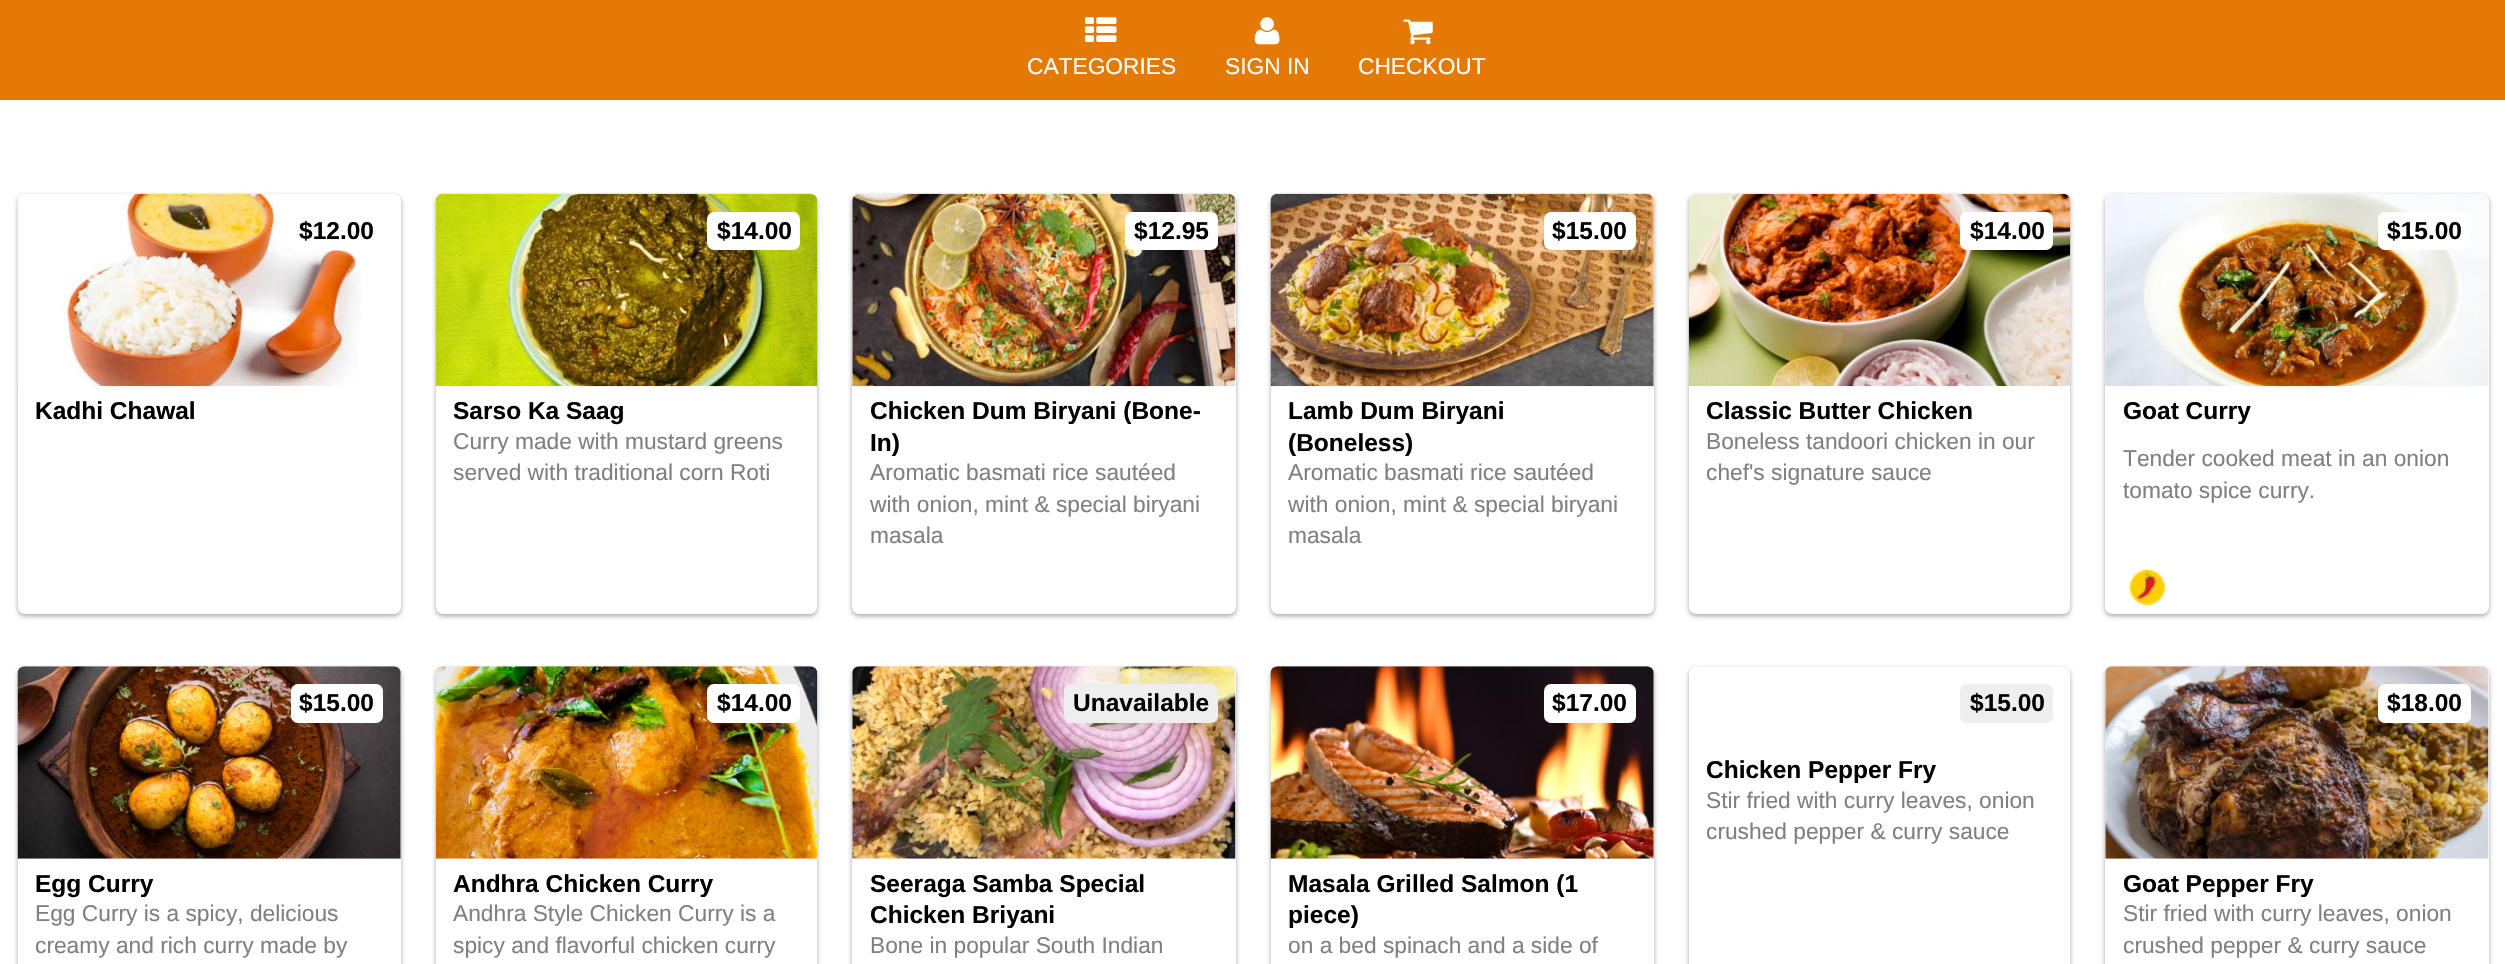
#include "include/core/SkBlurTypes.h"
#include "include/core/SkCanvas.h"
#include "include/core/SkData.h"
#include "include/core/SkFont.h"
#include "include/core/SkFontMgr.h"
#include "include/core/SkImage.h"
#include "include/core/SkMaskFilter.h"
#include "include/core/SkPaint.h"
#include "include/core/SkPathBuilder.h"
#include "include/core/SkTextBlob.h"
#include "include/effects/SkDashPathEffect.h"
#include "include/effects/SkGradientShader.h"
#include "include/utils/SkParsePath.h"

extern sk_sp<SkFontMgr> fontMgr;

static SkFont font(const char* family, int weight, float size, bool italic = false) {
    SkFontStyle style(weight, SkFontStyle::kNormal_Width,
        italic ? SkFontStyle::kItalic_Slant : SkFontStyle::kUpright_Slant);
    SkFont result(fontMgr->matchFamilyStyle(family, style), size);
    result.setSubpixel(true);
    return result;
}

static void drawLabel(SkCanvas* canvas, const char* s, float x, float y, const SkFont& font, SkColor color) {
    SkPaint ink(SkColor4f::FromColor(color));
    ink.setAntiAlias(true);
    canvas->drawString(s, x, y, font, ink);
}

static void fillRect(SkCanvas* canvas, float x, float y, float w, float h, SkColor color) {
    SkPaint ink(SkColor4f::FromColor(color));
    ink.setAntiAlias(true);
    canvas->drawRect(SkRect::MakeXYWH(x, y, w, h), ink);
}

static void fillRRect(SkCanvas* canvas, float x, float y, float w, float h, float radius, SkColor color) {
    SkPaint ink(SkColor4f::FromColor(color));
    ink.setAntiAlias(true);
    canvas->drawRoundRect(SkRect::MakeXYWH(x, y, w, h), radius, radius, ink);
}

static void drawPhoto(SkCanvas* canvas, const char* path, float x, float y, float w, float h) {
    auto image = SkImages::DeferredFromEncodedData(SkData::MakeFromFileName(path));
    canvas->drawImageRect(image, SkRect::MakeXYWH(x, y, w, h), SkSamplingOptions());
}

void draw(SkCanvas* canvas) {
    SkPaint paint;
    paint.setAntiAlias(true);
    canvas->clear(0xFFFFFFFF);
    fillRect(canvas, 0, 0, 2505, 100, 0xFFE47A04);
    drawPhoto(canvas, "assets/img1.png", 1085, 17, 32, 25);
    SkFont font1 = font("Liberation Sans", 400, 22.75f);
    drawLabel(canvas, "CATEGORIES", 1027, 74, font1, 0xFFFFFFFF);
    drawPhoto(canvas, "assets/img2.png", 1254, 17, 26, 28);
    drawLabel(canvas, "SIGN IN", 1225, 74, font1, 0xFFFFFFFF);
    drawPhoto(canvas, "assets/img3.png", 1403, 19, 30, 26);
    drawLabel(canvas, "CHECKOUT", 1358, 74, font1, 0xFFFFFFFF);
    paint.setColor(0x3D000000);
    paint.setMaskFilter(SkMaskFilter::MakeBlur(kNormal_SkBlurStyle, 2));
    canvas->drawRoundRect(SkRect::MakeXYWH(18, 196, 383, 420), 7, 7, paint);
    paint.setMaskFilter(nullptr);
    paint.setColor(0x1F000000);
    paint.setMaskFilter(SkMaskFilter::MakeBlur(kNormal_SkBlurStyle, 2.5f));
    canvas->drawRoundRect(SkRect::MakeXYWH(18, 196, 383, 420), 7, 7, paint);
    paint.setMaskFilter(nullptr);
    fillRRect(canvas, 18, 194, 383, 420, 7, 0xFFFFFFFF);
    drawPhoto(canvas, "assets/img4.png", 17, 193, 344, 194);
    fillRRect(canvas, 291, 212, 92, 38, 7, 0xFFFFFFFF);
    SkFont font2 = font("Liberation Sans", 700, 24.5f);
    drawLabel(canvas, "$12.00", 299, 239, font2, 0xFF000000);
    drawLabel(canvas, "Kadhi Chawal", 35, 419, font2, 0xFF000000);
    paint.setColor(0x3D000000);
    paint.setMaskFilter(SkMaskFilter::MakeBlur(kNormal_SkBlurStyle, 2));
    canvas->drawRoundRect(SkRect::MakeXYWH(436, 196, 381, 420), 7, 7, paint);
    paint.setMaskFilter(nullptr);
    paint.setColor(0x1F000000);
    paint.setMaskFilter(SkMaskFilter::MakeBlur(kNormal_SkBlurStyle, 2.5f));
    canvas->drawRoundRect(SkRect::MakeXYWH(436, 196, 381, 420), 7, 7, paint);
    paint.setMaskFilter(nullptr);
    fillRRect(canvas, 436, 194, 381, 420, 7, 0xFFFFFFFF);
    drawPhoto(canvas, "assets/img5.png", 435, 193, 383, 194);
    fillRRect(canvas, 707, 212, 93, 38, 7, 0xFFFFFFFF);
    drawLabel(canvas, "$14.00", 717, 239, font2, 0xFF000000);
    drawLabel(canvas, "Sarso Ka Saag", 453, 419, font2, 0xFF000000);
    drawLabel(canvas, "Curry made with mustard greens", 453, 449, font1, 0xFF808080);
    drawLabel(canvas, "served with traditional corn Roti", 453, 480, font1, 0xFF808080);
    paint.setColor(0x3D000000);
    paint.setMaskFilter(SkMaskFilter::MakeBlur(kNormal_SkBlurStyle, 2));
    canvas->drawRoundRect(SkRect::MakeXYWH(852, 196, 384, 420), 7, 7, paint);
    paint.setMaskFilter(nullptr);
    paint.setColor(0x1F000000);
    paint.setMaskFilter(SkMaskFilter::MakeBlur(kNormal_SkBlurStyle, 2.5f));
    canvas->drawRoundRect(SkRect::MakeXYWH(852, 196, 384, 420), 7, 7, paint);
    paint.setMaskFilter(nullptr);
    fillRRect(canvas, 852, 194, 384, 420, 7, 0xFFFFFFFF);
    drawPhoto(canvas, "assets/img6.png", 852, 193, 384, 194);
    fillRRect(canvas, 1125, 212, 93, 38, 7, 0xFFFFFFFF);
    drawLabel(canvas, "$12.95", 1134, 239, font2, 0xFF000000);
    drawLabel(canvas, "Chicken Dum Biryani (Bone-", 870, 419, font2, 0xFF000000);
    drawLabel(canvas, "In)", 870, 451, font2, 0xFF000000);
    drawLabel(canvas, "Aromatic basmati rice sautéed", 870, 480, font1, 0xFF808080);
    drawLabel(canvas, "with onion, mint & special biryani", 870, 512, font1, 0xFF808080);
    drawLabel(canvas, "masala", 870, 543, font1, 0xFF808080);
    paint.setColor(0x3D000000);
    paint.setMaskFilter(SkMaskFilter::MakeBlur(kNormal_SkBlurStyle, 2));
    canvas->drawRoundRect(SkRect::MakeXYWH(1271, 196, 383, 420), 7, 7, paint);
    paint.setMaskFilter(nullptr);
    paint.setColor(0x1F000000);
    paint.setMaskFilter(SkMaskFilter::MakeBlur(kNormal_SkBlurStyle, 2.5f));
    canvas->drawRoundRect(SkRect::MakeXYWH(1271, 196, 383, 420), 7, 7, paint);
    paint.setMaskFilter(nullptr);
    fillRRect(canvas, 1271, 194, 383, 420, 7, 0xFFFFFFFF);
    drawPhoto(canvas, "assets/img7.png", 1270, 193, 384, 194);
    fillRRect(canvas, 1544, 212, 92, 38, 7, 0xFFFFFFFF);
    drawLabel(canvas, "$15.00", 1552, 239, font2, 0xFF000000);
    drawLabel(canvas, "Lamb Dum Biryani", 1288, 419, font2, 0xFF000000);
    drawLabel(canvas, "(Boneless)", 1288, 451, font2, 0xFF000000);
    drawLabel(canvas, "Aromatic basmati rice sautéed", 1288, 480, font1, 0xFF808080);
    drawLabel(canvas, "with onion, mint & special biryani", 1288, 512, font1, 0xFF808080);
    drawLabel(canvas, "masala", 1288, 543, font1, 0xFF808080);
    paint.setColor(0x3D000000);
    paint.setMaskFilter(SkMaskFilter::MakeBlur(kNormal_SkBlurStyle, 2));
    canvas->drawRoundRect(SkRect::MakeXYWH(1689, 196, 381, 420), 7, 7, paint);
    paint.setMaskFilter(nullptr);
    paint.setColor(0x1F000000);
    paint.setMaskFilter(SkMaskFilter::MakeBlur(kNormal_SkBlurStyle, 2.5f));
    canvas->drawRoundRect(SkRect::MakeXYWH(1689, 196, 381, 420), 7, 7, paint);
    paint.setMaskFilter(nullptr);
    fillRRect(canvas, 1689, 194, 381, 420, 7, 0xFFFFFFFF);
    drawPhoto(canvas, "assets/img8.png", 1688, 193, 383, 194);
    fillRRect(canvas, 1960, 212, 93, 38, 7, 0xFFFFFFFF);
    drawLabel(canvas, "$14.00", 1970, 239, font2, 0xFF000000);
    drawLabel(canvas, "Classic Butter Chicken", 1706, 419, font2, 0xFF000000);
    drawLabel(canvas, "Boneless tandoori chicken in our", 1706, 449, font1, 0xFF808080);
    drawLabel(canvas, "chef's signature sauce", 1706, 480, font1, 0xFF808080);
    paint.setColor(0x3D000000);
    paint.setMaskFilter(SkMaskFilter::MakeBlur(kNormal_SkBlurStyle, 2));
    canvas->drawRoundRect(SkRect::MakeXYWH(2105, 196, 384, 420), 7, 7, paint);
    paint.setMaskFilter(nullptr);
    paint.setColor(0x1F000000);
    paint.setMaskFilter(SkMaskFilter::MakeBlur(kNormal_SkBlurStyle, 2.5f));
    canvas->drawRoundRect(SkRect::MakeXYWH(2105, 196, 384, 420), 7, 7, paint);
    paint.setMaskFilter(nullptr);
    fillRRect(canvas, 2105, 194, 384, 420, 7, 0xFFFFFFFF);
    drawPhoto(canvas, "assets/img9.png", 2105, 194, 384, 193);
    fillRRect(canvas, 2378, 212, 93, 38, 7, 0xFFFFFFFF);
    drawLabel(canvas, "$15.00", 2387, 239, font2, 0xFF000000);
    drawLabel(canvas, "Goat Curry", 2123, 419, font2, 0xFF000000);
    drawLabel(canvas, "Tender cooked meat in an onion", 2123, 466, font1, 0xFF808080);
    drawLabel(canvas, "tomato spice curry.", 2123, 498, font1, 0xFF808080);
    drawPhoto(canvas, "assets/img10.png", 2129, 570, 36, 35);
    paint.setColor(0x3D000000);
    paint.setMaskFilter(SkMaskFilter::MakeBlur(kNormal_SkBlurStyle, 2));
    canvas->drawRoundRect(SkRect::MakeXYWH(18, 669, 383, 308), 7, 7, paint);
    paint.setMaskFilter(nullptr);
    paint.setColor(0x1F000000);
    paint.setMaskFilter(SkMaskFilter::MakeBlur(kNormal_SkBlurStyle, 2.5f));
    canvas->drawRoundRect(SkRect::MakeXYWH(18, 669, 383, 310), 7, 7, paint);
    paint.setMaskFilter(nullptr);
    fillRRect(canvas, 18, 667, 383, 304, 7, 0xFFFFFFFF);
    drawPhoto(canvas, "assets/img11.png", 17, 666, 384, 193);
    fillRRect(canvas, 291, 684, 92, 39, 7, 0xFFFFFFFF);
    drawLabel(canvas, "$15.00", 299, 711, font2, 0xFF000000);
    drawLabel(canvas, "Egg Curry", 35, 892, font2, 0xFF000000);
    drawLabel(canvas, "Egg Curry is a spicy, delicious", 35, 921, font1, 0xFF808080);
    drawLabel(canvas, "creamy and rich curry made by", 35, 953, font1, 0xFF808080);
    paint.setColor(0x3D000000);
    paint.setMaskFilter(SkMaskFilter::MakeBlur(kNormal_SkBlurStyle, 2));
    canvas->drawRoundRect(SkRect::MakeXYWH(436, 669, 381, 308), 7, 7, paint);
    paint.setMaskFilter(nullptr);
    paint.setColor(0x1F000000);
    paint.setMaskFilter(SkMaskFilter::MakeBlur(kNormal_SkBlurStyle, 2.5f));
    canvas->drawRoundRect(SkRect::MakeXYWH(436, 669, 381, 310), 7, 7, paint);
    paint.setMaskFilter(nullptr);
    fillRRect(canvas, 436, 667, 381, 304, 7, 0xFFFFFFFF);
    drawPhoto(canvas, "assets/img12.png", 435, 666, 383, 193);
    fillRRect(canvas, 707, 684, 93, 39, 7, 0xFFFFFFFF);
    drawLabel(canvas, "$14.00", 717, 711, font2, 0xFF000000);
    drawLabel(canvas, "Andhra Chicken Curry", 453, 892, font2, 0xFF000000);
    drawLabel(canvas, "Andhra Style Chicken Curry is a", 453, 921, font1, 0xFF808080);
    drawLabel(canvas, "spicy and flavorful chicken curry", 453, 953, font1, 0xFF808080);
    paint.setColor(0x3D000000);
    paint.setMaskFilter(SkMaskFilter::MakeBlur(kNormal_SkBlurStyle, 2));
    canvas->drawRoundRect(SkRect::MakeXYWH(852, 669, 384, 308), 7, 7, paint);
    paint.setMaskFilter(nullptr);
    paint.setColor(0x1F000000);
    paint.setMaskFilter(SkMaskFilter::MakeBlur(kNormal_SkBlurStyle, 2.5f));
    canvas->drawRoundRect(SkRect::MakeXYWH(852, 669, 384, 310), 7, 7, paint);
    paint.setMaskFilter(nullptr);
    fillRRect(canvas, 852, 667, 384, 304, 7, 0xFFFFFFFF);
    drawPhoto(canvas, "assets/img13.png", 852, 666, 384, 193);
    fillRRect(canvas, 1064, 684, 154, 39, 7, 0xFFEEEEEE);
    drawLabel(canvas, "Unavailable", 1073, 711, font2, 0xFF000000);
    drawLabel(canvas, "Seeraga Samba Special", 870, 892, font2, 0xFF000000);
    drawLabel(canvas, "Chicken Briyani", 870, 923, font2, 0xFF000000);
    drawLabel(canvas, "Bone in popular South Indian", 870, 953, font1, 0xFF808080);
    paint.setColor(0x3D000000);
    paint.setMaskFilter(SkMaskFilter::MakeBlur(kNormal_SkBlurStyle, 2));
    canvas->drawRoundRect(SkRect::MakeXYWH(1271, 669, 383, 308), 7, 7, paint);
    paint.setMaskFilter(nullptr);
    paint.setColor(0x1F000000);
    paint.setMaskFilter(SkMaskFilter::MakeBlur(kNormal_SkBlurStyle, 2.5f));
    canvas->drawRoundRect(SkRect::MakeXYWH(1271, 669, 383, 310), 7, 7, paint);
    paint.setMaskFilter(nullptr);
    fillRRect(canvas, 1271, 667, 383, 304, 7, 0xFFFFFFFF);
    drawPhoto(canvas, "assets/img14.png", 1270, 666, 384, 193);
    fillRRect(canvas, 1544, 684, 92, 39, 7, 0xFFFFFFFF);
    drawLabel(canvas, "$17.00", 1552, 711, font2, 0xFF000000);
    drawLabel(canvas, "Masala Grilled Salmon (1", 1288, 892, font2, 0xFF000000);
    drawLabel(canvas, "piece)", 1288, 923, font2, 0xFF000000);
    drawLabel(canvas, "on a bed spinach and a side of", 1288, 953, font1, 0xFF808080);
    paint.setColor(0x3D000000);
    paint.setMaskFilter(SkMaskFilter::MakeBlur(kNormal_SkBlurStyle, 2));
    canvas->drawRoundRect(SkRect::MakeXYWH(1689, 669, 381, 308), 7, 7, paint);
    paint.setMaskFilter(nullptr);
    paint.setColor(0x1F000000);
    paint.setMaskFilter(SkMaskFilter::MakeBlur(kNormal_SkBlurStyle, 2.5f));
    canvas->drawRoundRect(SkRect::MakeXYWH(1689, 669, 381, 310), 7, 7, paint);
    paint.setMaskFilter(nullptr);
    fillRRect(canvas, 1689, 667, 381, 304, 7, 0xFFFFFFFF);
    fillRRect(canvas, 1960, 684, 93, 39, 7, 0xFFEEEEEE);
    drawLabel(canvas, "$15.00", 1970, 711, font2, 0xFF000000);
    drawLabel(canvas, "Chicken Pepper Fry", 1706, 778, font2, 0xFF000000);
    drawLabel(canvas, "Stir fried with curry leaves, onion", 1706, 808, font1, 0xFF808080);
    drawLabel(canvas, "crushed pepper & curry sauce", 1706, 839, font1, 0xFF808080);
    paint.setColor(0x3D000000);
    paint.setMaskFilter(SkMaskFilter::MakeBlur(kNormal_SkBlurStyle, 2));
    canvas->drawRoundRect(SkRect::MakeXYWH(2105, 669, 384, 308), 7, 7, paint);
    paint.setMaskFilter(nullptr);
    paint.setColor(0x1F000000);
    paint.setMaskFilter(SkMaskFilter::MakeBlur(kNormal_SkBlurStyle, 2.5f));
    canvas->drawRoundRect(SkRect::MakeXYWH(2105, 669, 384, 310), 7, 7, paint);
    paint.setMaskFilter(nullptr);
    fillRRect(canvas, 2105, 667, 384, 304, 7, 0xFFFFFFFF);
    drawPhoto(canvas, "assets/img15.png", 2105, 666, 384, 193);
    fillRRect(canvas, 2378, 684, 93, 39, 7, 0xFFFFFFFF);
    drawLabel(canvas, "$18.00", 2387, 711, font2, 0xFF000000);
    drawLabel(canvas, "Goat Pepper Fry", 2123, 892, font2, 0xFF000000);
    drawLabel(canvas, "Stir fried with curry leaves, onion", 2123, 921, font1, 0xFF808080);
    drawLabel(canvas, "crushed pepper & curry sauce", 2123, 953, font1, 0xFF808080);
}
